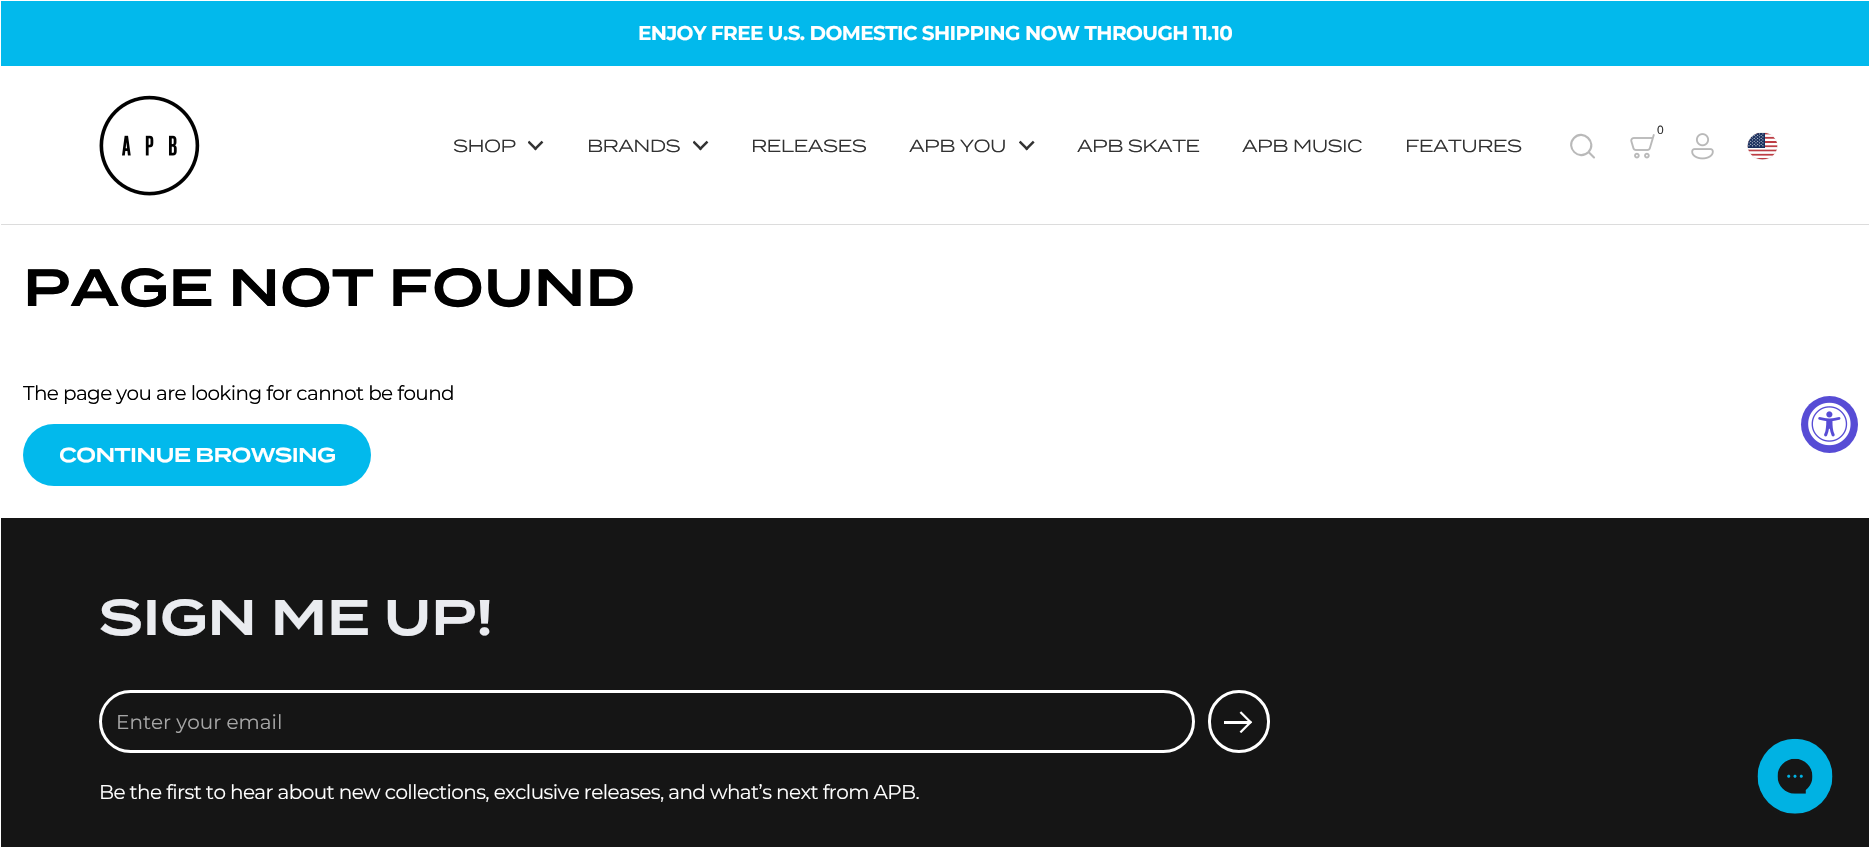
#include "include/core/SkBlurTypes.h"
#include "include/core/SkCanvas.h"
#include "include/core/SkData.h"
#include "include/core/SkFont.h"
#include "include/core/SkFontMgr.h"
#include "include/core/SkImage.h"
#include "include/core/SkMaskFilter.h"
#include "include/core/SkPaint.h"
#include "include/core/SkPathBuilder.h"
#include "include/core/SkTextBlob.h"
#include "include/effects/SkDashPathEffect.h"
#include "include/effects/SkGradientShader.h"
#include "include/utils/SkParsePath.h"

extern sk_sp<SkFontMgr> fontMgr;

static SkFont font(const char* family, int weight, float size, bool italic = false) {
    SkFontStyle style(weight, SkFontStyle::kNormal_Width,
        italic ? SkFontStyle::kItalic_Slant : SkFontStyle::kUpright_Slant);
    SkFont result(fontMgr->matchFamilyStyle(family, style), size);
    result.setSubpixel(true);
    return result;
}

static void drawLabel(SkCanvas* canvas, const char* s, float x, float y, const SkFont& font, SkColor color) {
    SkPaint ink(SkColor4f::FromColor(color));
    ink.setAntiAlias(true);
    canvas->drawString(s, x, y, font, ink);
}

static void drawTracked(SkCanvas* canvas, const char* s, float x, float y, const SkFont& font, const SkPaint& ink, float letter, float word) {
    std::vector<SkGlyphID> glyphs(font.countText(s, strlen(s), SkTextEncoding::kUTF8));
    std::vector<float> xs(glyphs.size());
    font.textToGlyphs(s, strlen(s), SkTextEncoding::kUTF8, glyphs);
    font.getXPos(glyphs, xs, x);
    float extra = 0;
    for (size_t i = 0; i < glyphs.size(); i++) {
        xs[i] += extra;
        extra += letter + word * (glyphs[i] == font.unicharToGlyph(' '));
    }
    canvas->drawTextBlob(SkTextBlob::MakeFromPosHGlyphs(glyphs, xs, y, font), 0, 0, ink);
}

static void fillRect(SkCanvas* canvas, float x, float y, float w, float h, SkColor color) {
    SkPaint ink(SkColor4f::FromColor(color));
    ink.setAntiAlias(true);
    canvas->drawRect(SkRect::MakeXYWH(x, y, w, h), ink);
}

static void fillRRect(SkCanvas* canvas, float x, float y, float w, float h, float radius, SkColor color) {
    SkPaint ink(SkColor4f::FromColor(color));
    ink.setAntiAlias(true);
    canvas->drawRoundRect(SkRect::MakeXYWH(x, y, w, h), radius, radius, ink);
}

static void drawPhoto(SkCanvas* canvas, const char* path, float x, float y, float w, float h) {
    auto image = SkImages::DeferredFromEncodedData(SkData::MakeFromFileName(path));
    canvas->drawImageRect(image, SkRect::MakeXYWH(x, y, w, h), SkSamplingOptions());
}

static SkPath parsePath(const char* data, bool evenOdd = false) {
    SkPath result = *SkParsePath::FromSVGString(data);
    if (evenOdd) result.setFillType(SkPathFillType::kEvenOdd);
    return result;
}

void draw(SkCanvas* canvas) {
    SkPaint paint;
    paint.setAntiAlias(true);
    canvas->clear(0xFFFFFFFF);
    fillRect(canvas, 1, 1, 1868, 65, 0xFF02B9EC);
    SkFont font1 = font("Montserrat", 700, 20);
    paint.setColor(0xFFFFFFFF);
    drawTracked(canvas, "ENJOY FREE U.S. DOMESTIC SHIPPING NOW THROUGH 11.10", 638, 40, font1, paint, -0.6f, 0);
    drawPhoto(canvas, "assets/img1.png", 99, 95, 101, 101);
    SkFont font2 = font("Liberation Sans", 400, 12);
    paint.setColor(0xFF323232);
    drawTracked(canvas, "0", 1657, 134, font2, paint, -0.6f, 0);
    drawPhoto(canvas, "assets/img2.png", 1630, 134, 25, 25);
    paint.setStroke(true);
    paint.setStrokeWidth(2.1f);
    paint.setStrokeCap(SkPaint::kRound_Cap);
    paint.setStrokeJoin(SkPaint::kRound_Join);
    paint.setColor(0xFFB9B9B9);
    canvas->drawPath(parsePath("M1594 157.5L1588.5 152M1588.5 152C1597.5 142.5 1583 128.5 1574 138C1565 147.5 1579 161.5 1588.5 152Z"), paint);
    drawPhoto(canvas, "assets/img3.png", 1691, 133, 23, 27);
    paint.setStroke(false);
    paint.setColor(0xFFEFEFEF);
    canvas->drawOval(SkRect::MakeXYWH(1747.5f, 132, 30, 28), paint);
    drawPhoto(canvas, "assets/img4.png", 1747, 133, 31, 27);
    SkFont font3 = font("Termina", 400, 17.5f);
    paint.setColor(0xFF323232);
    drawTracked(canvas, "SHOP", 453, 152, font3, paint, -0.6f, 0);
    drawPhoto(canvas, "assets/img5.png", 528, 140, 16, 11);
    drawTracked(canvas, "BRANDS", 587, 152, font3, paint, -0.6f, 0);
    drawPhoto(canvas, "assets/img5.png", 693, 140, 16, 11);
    drawTracked(canvas, "RELEASES", 751, 152, font3, paint, -0.6f, 0);
    drawTracked(canvas, "APB YOU", 909, 152, font3, paint, -0.6f, 0);
    drawPhoto(canvas, "assets/img6.png", 1019, 140, 16, 11);
    drawTracked(canvas, "APB SKATE", 1077, 152, font3, paint, -0.6f, 0);
    drawTracked(canvas, "APB MUSIC", 1242, 152, font3, paint, -0.6f, 0);
    drawTracked(canvas, "FEATURES", 1405, 152, font3, paint, -0.6f, 0);
    fillRect(canvas, 1, 224, 1868, 1, 0xFFDCDCDC);
    SkFont font4 = font("Termina", 600, 52.5f);
    drawLabel(canvas, "PAGE NOT FOUND", 23, 306, font4, 0xFF000000);
    SkFont font5 = font("Montserrat", 400, 20);
    paint.setColor(0xFF000000);
    drawTracked(canvas, "The page you are looking for cannot be found", 23, 400, font5, paint, -0.6f, 0);
    fillRRect(canvas, 23, 424, 348, 62, 31, 0xFF02B9EC);
    SkFont font6 = font("Termina", 600, 20);
    paint.setColor(0xFFFFFFFF);
    drawTracked(canvas, "CONTINUE BROWSING", 59, 462, font6, paint, -0.6f, 0);
    fillRect(canvas, 1, 518, 1868, 329, 0xFF151515);
    SkFont font7 = font("Termina", 600, 50);
    drawLabel(canvas, "SIGN ME UP!", 99, 635, font7, 0xFFEAECF0);
    paint.setStroke(true);
    paint.setStrokeWidth(3);
    paint.setStrokeCap(SkPaint::kButt_Cap);
    paint.setStrokeJoin(SkPaint::kMiter_Join);
    canvas->drawRoundRect(SkRect::MakeXYWH(100.5f, 691.5f, 1093, 60), 30, 30, paint);
    drawLabel(canvas, "Enter your email", 116, 729, font5, 0xFFA6A6A6);
    canvas->drawRoundRect(SkRect::MakeXYWH(1209.5f, 691.5f, 59, 60), 29.5f, 29.5f, paint);
    drawPhoto(canvas, "assets/img7.png", 1224, 711, 29, 22);
    paint.setStroke(false);
    drawTracked(canvas, "Be the first to hear about new collections, exclusive releases, and what’s next from APB.", 99, 799, font5, paint, -0.6f, 0);
    paint.setColor(0xFF574CD5);
    canvas->drawCircle(1829.5f, 424.5f, 28.5f, paint);
    drawPhoto(canvas, "assets/img8.png", 1808, 402, 43, 44);
    drawPhoto(canvas, "assets/img9.png", 1757, 738, 76, 76);
}
